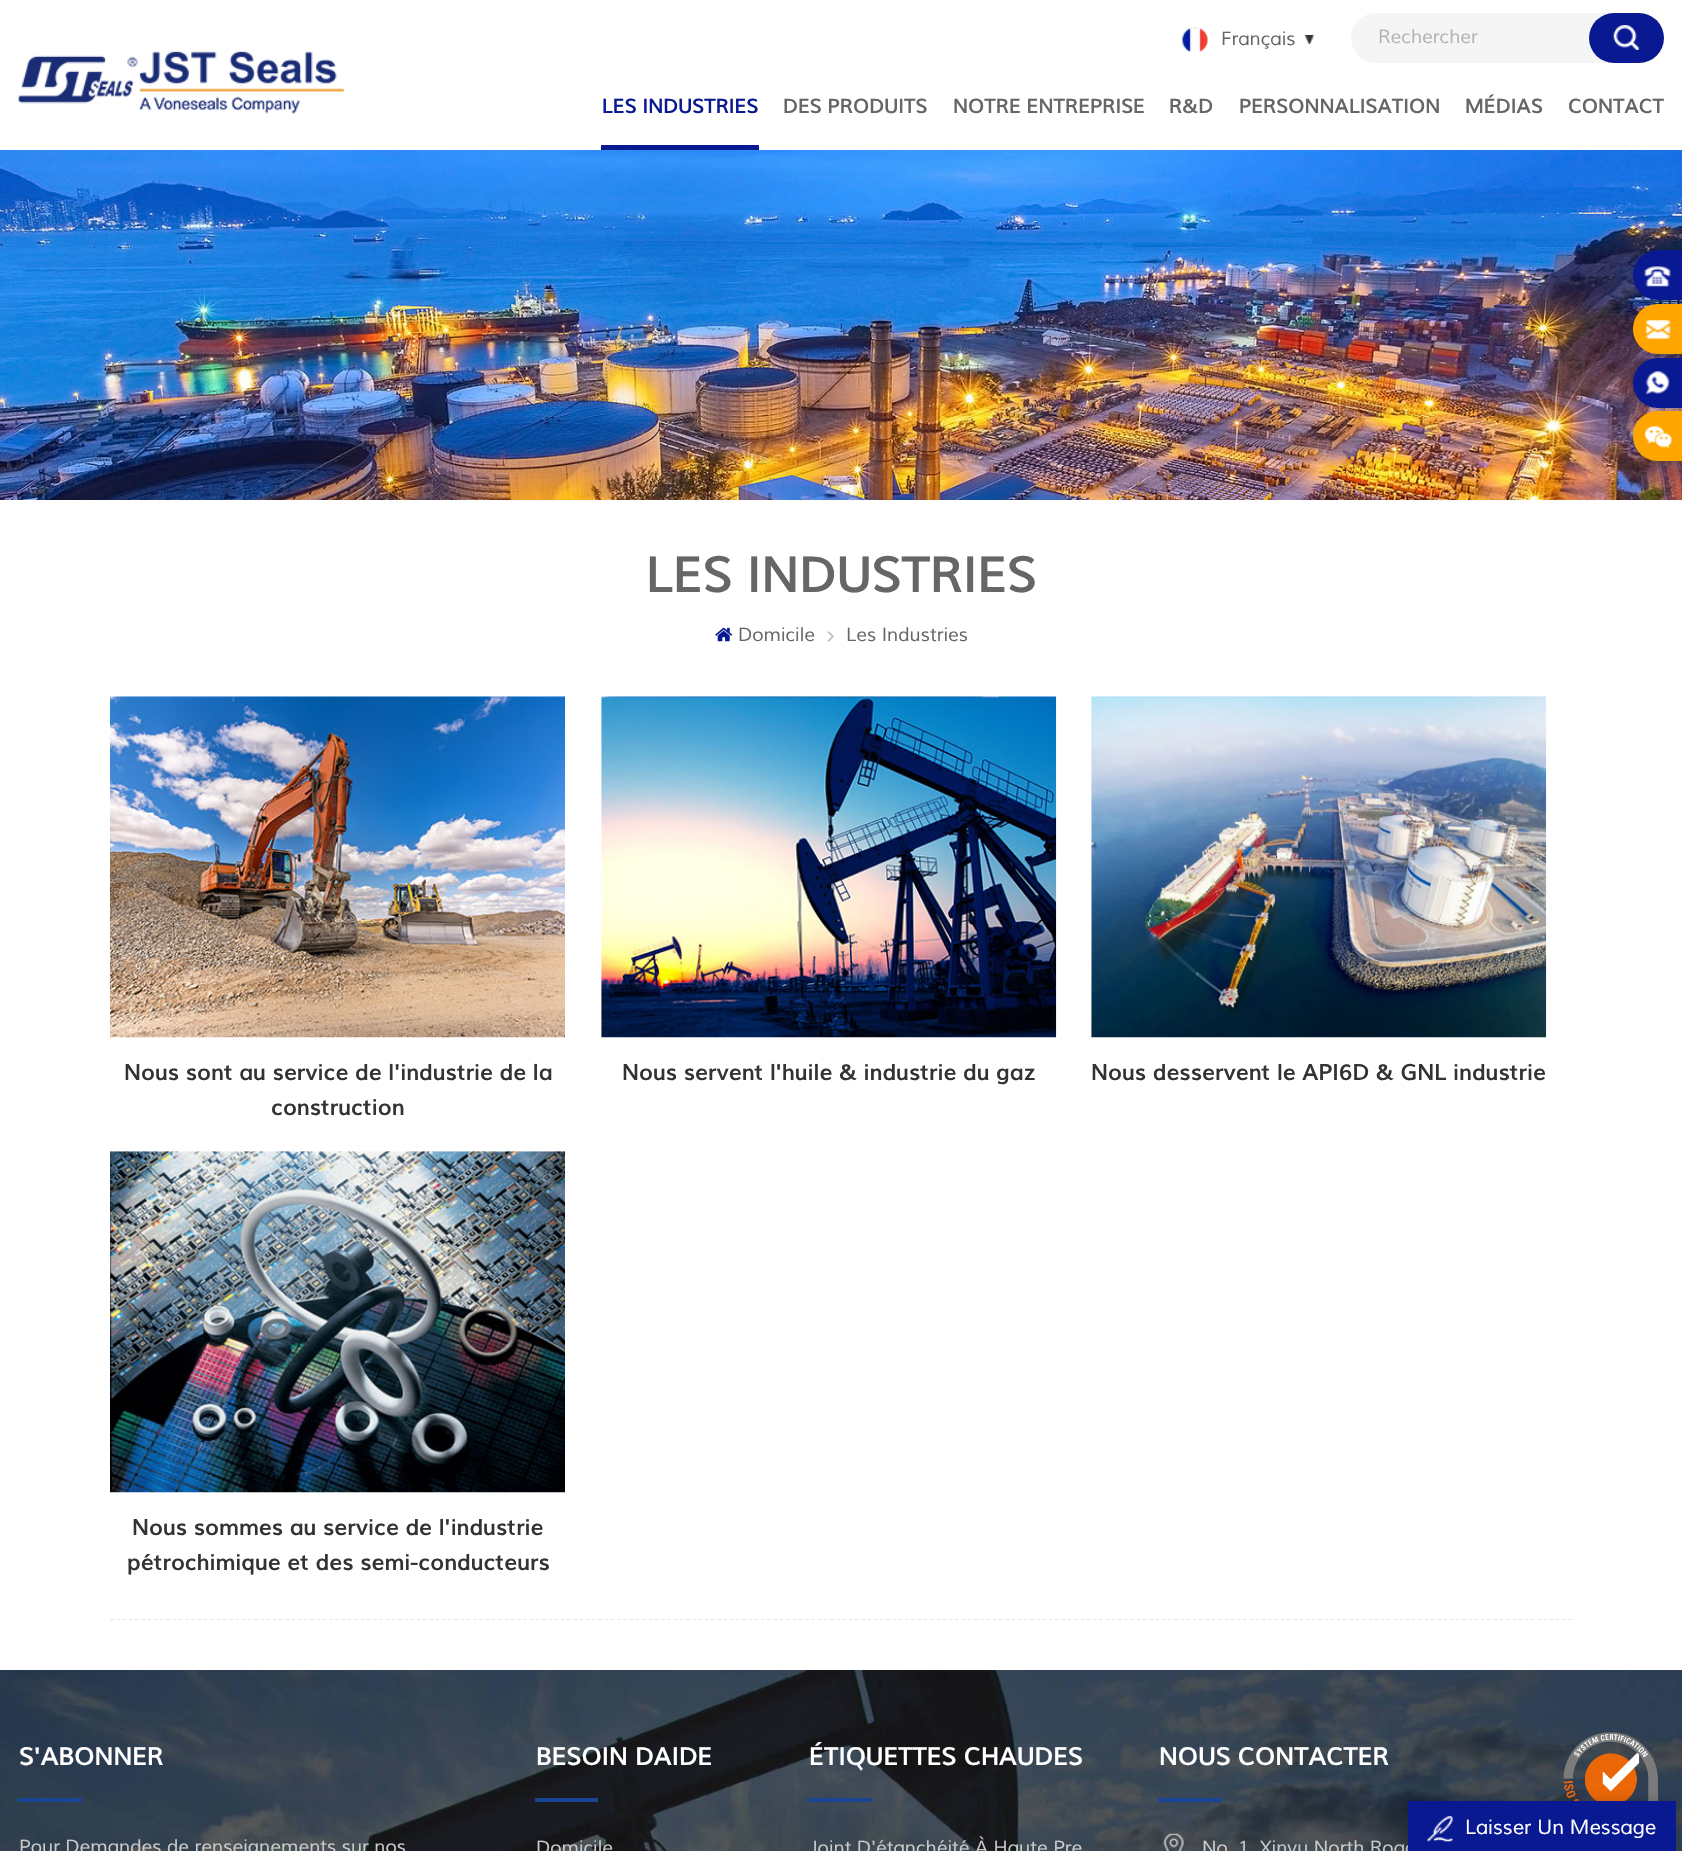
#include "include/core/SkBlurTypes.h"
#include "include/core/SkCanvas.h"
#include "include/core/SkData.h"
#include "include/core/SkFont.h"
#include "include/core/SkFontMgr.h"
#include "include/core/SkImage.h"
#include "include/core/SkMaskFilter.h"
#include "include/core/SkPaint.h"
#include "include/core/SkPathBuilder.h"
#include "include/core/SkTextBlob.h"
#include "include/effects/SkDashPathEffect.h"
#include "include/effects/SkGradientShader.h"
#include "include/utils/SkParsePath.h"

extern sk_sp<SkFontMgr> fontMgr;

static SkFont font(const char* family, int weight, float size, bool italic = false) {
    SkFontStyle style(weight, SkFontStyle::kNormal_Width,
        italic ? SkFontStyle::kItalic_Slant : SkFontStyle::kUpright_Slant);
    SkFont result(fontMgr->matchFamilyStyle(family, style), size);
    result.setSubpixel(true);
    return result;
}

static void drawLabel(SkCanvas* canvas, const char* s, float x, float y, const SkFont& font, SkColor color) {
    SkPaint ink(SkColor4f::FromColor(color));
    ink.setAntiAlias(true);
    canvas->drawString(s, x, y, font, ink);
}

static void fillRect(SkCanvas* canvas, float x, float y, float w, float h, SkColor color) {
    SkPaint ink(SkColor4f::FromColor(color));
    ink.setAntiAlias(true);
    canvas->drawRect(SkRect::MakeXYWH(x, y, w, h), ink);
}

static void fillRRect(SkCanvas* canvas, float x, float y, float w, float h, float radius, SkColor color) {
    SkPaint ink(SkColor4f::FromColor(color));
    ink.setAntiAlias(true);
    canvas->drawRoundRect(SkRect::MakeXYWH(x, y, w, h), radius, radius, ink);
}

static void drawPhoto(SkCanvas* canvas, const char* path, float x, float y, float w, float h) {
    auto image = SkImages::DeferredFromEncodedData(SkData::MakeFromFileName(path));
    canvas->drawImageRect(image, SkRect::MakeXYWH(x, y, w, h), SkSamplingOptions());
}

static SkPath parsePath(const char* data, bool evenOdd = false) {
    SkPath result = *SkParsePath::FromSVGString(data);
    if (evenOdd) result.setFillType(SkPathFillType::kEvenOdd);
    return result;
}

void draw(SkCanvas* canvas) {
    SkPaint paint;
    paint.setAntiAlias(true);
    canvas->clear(0xFFFFFFFF);
    drawPhoto(canvas, "assets/img1.png", 1182, 27, 26, 25);
    SkFont font1 = font("Muli", 400, 18.75f, true);
    drawLabel(canvas, "Français", 1221, 45, font1, 0xFF666666);
    drawPhoto(canvas, "assets/img2.png", 1305, 35, 9, 9);
    fillRRect(canvas, 1351, 13, 313, 50, 25, 0xFFF5F5F5);
    drawLabel(canvas, "Rechercher", 1378, 43, font1, 0xFFB2B2B2);
    fillRRect(canvas, 1589, 13, 75, 50, 25, 0xFF091992);
    drawPhoto(canvas, "assets/img3.png", 1613, 25, 26, 25);
    drawPhoto(canvas, "assets/img4.png", 18, 51, 326, 63);
    SkFont font2 = font("Muli", 700, 20);
    drawLabel(canvas, "LES INDUSTRIES", 602, 113, font2, 0xFF091992);
    fillRect(canvas, 601, 145, 158, 5, 0xFF091992);
    drawLabel(canvas, "DES PRODUITS", 783, 113, font2, 0xFF666666);
    drawLabel(canvas, "NOTRE ENTREPRISE", 953, 113, font2, 0xFF666666);
    drawLabel(canvas, "R&D", 1169, 113, font2, 0xFF666666);
    drawLabel(canvas, "PERSONNALISATION", 1239, 113, font2, 0xFF666666);
    drawLabel(canvas, "MÉDIAS", 1465, 113, font2, 0xFF666666);
    drawLabel(canvas, "CONTACT", 1568, 113, font2, 0xFF666666);
    drawPhoto(canvas, "assets/img5.png", 0, 150, 1682, 350);
    paint.setColor(0x33000000);
    paint.setMaskFilter(SkMaskFilter::MakeBlur(kNormal_SkBlurStyle, 3));
    canvas->drawRoundRect(SkRect::MakeXYWH(1633, 250, 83, 50), 25, 25, paint);
    paint.setMaskFilter(nullptr);
    paint.setColor(0xFF091992);
    canvas->drawPath(parsePath("M1658 250H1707V300H1658C1644 300 1633 289 1633 275C1633 261 1644 250 1658 250Z"), paint);
    drawPhoto(canvas, "assets/img6.png", 1644, 266, 27, 21);
    paint.setColor(0x33000000);
    paint.setMaskFilter(SkMaskFilter::MakeBlur(kNormal_SkBlurStyle, 3));
    canvas->drawRoundRect(SkRect::MakeXYWH(1633, 304, 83, 50), 25, 25, paint);
    paint.setMaskFilter(nullptr);
    paint.setColor(0xFFFFA500);
    canvas->drawPath(parsePath("M1658 304H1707V354H1658C1644 354 1633 343 1633 329C1633 315 1644 304 1658 304Z"), paint);
    drawPhoto(canvas, "assets/img7.png", 1645, 319, 26, 20);
    paint.setColor(0x33000000);
    paint.setMaskFilter(SkMaskFilter::MakeBlur(kNormal_SkBlurStyle, 3));
    canvas->drawRoundRect(SkRect::MakeXYWH(1633, 358, 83, 50), 25, 25, paint);
    paint.setMaskFilter(nullptr);
    paint.setColor(0xFF091992);
    canvas->drawPath(parsePath("M1658 358H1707V408H1658C1644 408 1633 397 1633 383C1633 369 1644 358 1658 358Z"), paint);
    drawPhoto(canvas, "assets/img8.png", 1645, 371, 25, 23);
    paint.setColor(0x33000000);
    paint.setMaskFilter(SkMaskFilter::MakeBlur(kNormal_SkBlurStyle, 3));
    canvas->drawRoundRect(SkRect::MakeXYWH(1633, 411, 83, 50), 25, 25, paint);
    paint.setMaskFilter(nullptr);
    paint.setColor(0xFFFFA500);
    canvas->drawPath(parsePath("M1658 411H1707V461H1658C1644 461 1633 450 1633 436C1633 422 1644 411 1658 411Z"), paint);
    drawPhoto(canvas, "assets/img9.png", 1644, 426, 28, 22);
    SkFont font3 = font("Muli", 700, 50);
    drawLabel(canvas, "LES INDUSTRIES", 646, 592, font3, 0xFF666666);
    drawPhoto(canvas, "assets/img10.png", 715, 627, 18, 15);
    drawLabel(canvas, "Domicile", 738, 641, font1, 0xFF666666);
    drawPhoto(canvas, "assets/img11.png", 827, 631, 7, 11);
    drawLabel(canvas, "Les Industries", 846, 641, font1, 0xFF666666);
    drawPhoto(canvas, "assets/img12.png", 110, 696, 455, 342);
    SkFont font4 = font("Muli", 700, 22.5f);
    drawLabel(canvas, "Nous sont au service de l'industrie de la", 124, 1080, font4, 0xFF333333);
    drawLabel(canvas, "construction", 271, 1115, font4, 0xFF333333);
    drawPhoto(canvas, "assets/img13.png", 601, 696, 456, 342);
    drawLabel(canvas, "Nous servent l'huile & industrie du gaz", 622, 1080, font4, 0xFF333333);
    drawPhoto(canvas, "assets/img14.png", 1091, 696, 456, 342);
    drawLabel(canvas, "Nous desservent le API6D & GNL industrie", 1091, 1080, font4, 0xFF333333);
    drawPhoto(canvas, "assets/img15.png", 110, 1151, 455, 342);
    drawLabel(canvas, "Nous sommes au service de l'industrie", 132, 1535, font4, 0xFF333333);
    drawLabel(canvas, "pétrochimique et des semi-conducteurs", 127, 1570, font4, 0xFF333333);
    paint.setStroke(true);
    paint.setStrokeWidth(1.2f);
    paint.setColor(0xFFE5E5E5);
    paint.setPathEffect(SkDashPathEffect::Make({{3.75f, 2.51f}}, 0));
    canvas->drawPath(parsePath("M110 1619.5H1572.5"), paint);
    paint.setPathEffect(nullptr);
    drawPhoto(canvas, "assets/img16.png", 0, 1670, 1682, 181);
    fillRect(canvas, 18, 1798, 64, 4, 0xFF184694);
    SkFont font5 = font("Muli", 700, 25);
    drawLabel(canvas, "S'ABONNER", 19, 1765, font5, 0xFFFFFFFF);
    drawLabel(canvas, "Pour Demandes de renseignements sur nos", 19, 1853, font1, 0xFFCCCCCC);
    fillRect(canvas, 535, 1798, 63, 4, 0xFF184694);
    drawLabel(canvas, "BESOIN DAIDE", 536, 1765, font5, 0xFFFFFFFF);
    drawLabel(canvas, "Domicile", 536, 1854, font1, 0xFFCCCCCC);
    fillRect(canvas, 808, 1798, 64, 4, 0xFF184694);
    drawLabel(canvas, "ÉTIQUETTES CHAUDES", 809, 1765, font5, 0xFFFFFFFF);
    drawLabel(canvas, "Joint D'étanchéité À Haute Pre", 809, 1854, font1, 0xFFCCCCCC);
    fillRect(canvas, 1158, 1798, 64, 4, 0xFF184694);
    drawLabel(canvas, "NOUS CONTACTER", 1159, 1765, font5, 0xFFFFFFFF);
    drawPhoto(canvas, "assets/img17.png", 1163, 1833, 21, 18);
    drawLabel(canvas, "No. 1, Xinyu North Road", 1202, 1854, font1, 0xFFCCCCCC);
    drawPhoto(canvas, "assets/img18.png", 1563, 1732, 96, 69);
    paint.setStroke(false);
    paint.setColor(0x33000000);
    paint.setMaskFilter(SkMaskFilter::MakeBlur(kNormal_SkBlurStyle, 6));
    canvas->drawRect(SkRect::MakeXYWH(1408, 1801, 268, 50), paint);
    paint.setMaskFilter(nullptr);
    fillRect(canvas, 1408, 1801, 268, 50, 0xFF091992);
    drawPhoto(canvas, "assets/img19.png", 1427, 1816, 26, 26);
    SkFont font6 = font("Muli", 400, 20, true);
    drawLabel(canvas, "Laisser Un Message", 1465, 1834, font6, 0xFFFFFFFF);
}
